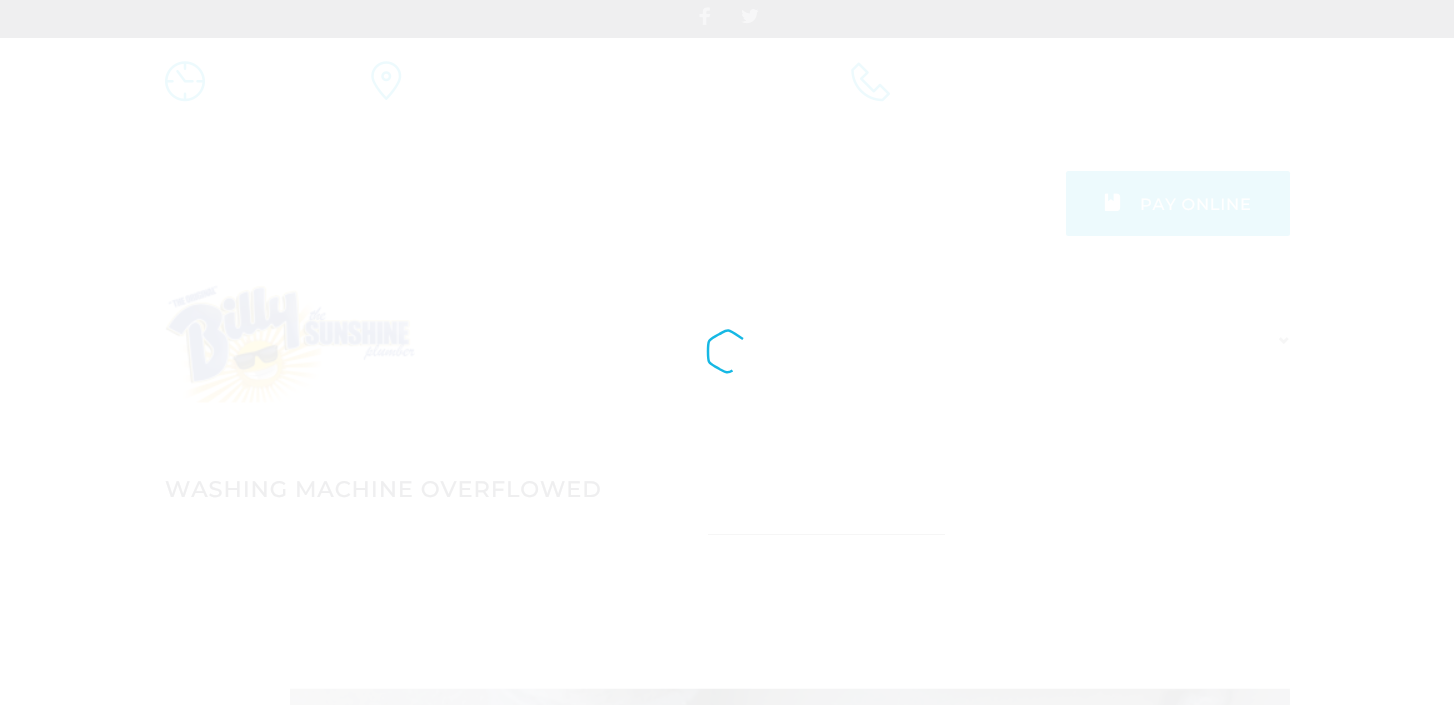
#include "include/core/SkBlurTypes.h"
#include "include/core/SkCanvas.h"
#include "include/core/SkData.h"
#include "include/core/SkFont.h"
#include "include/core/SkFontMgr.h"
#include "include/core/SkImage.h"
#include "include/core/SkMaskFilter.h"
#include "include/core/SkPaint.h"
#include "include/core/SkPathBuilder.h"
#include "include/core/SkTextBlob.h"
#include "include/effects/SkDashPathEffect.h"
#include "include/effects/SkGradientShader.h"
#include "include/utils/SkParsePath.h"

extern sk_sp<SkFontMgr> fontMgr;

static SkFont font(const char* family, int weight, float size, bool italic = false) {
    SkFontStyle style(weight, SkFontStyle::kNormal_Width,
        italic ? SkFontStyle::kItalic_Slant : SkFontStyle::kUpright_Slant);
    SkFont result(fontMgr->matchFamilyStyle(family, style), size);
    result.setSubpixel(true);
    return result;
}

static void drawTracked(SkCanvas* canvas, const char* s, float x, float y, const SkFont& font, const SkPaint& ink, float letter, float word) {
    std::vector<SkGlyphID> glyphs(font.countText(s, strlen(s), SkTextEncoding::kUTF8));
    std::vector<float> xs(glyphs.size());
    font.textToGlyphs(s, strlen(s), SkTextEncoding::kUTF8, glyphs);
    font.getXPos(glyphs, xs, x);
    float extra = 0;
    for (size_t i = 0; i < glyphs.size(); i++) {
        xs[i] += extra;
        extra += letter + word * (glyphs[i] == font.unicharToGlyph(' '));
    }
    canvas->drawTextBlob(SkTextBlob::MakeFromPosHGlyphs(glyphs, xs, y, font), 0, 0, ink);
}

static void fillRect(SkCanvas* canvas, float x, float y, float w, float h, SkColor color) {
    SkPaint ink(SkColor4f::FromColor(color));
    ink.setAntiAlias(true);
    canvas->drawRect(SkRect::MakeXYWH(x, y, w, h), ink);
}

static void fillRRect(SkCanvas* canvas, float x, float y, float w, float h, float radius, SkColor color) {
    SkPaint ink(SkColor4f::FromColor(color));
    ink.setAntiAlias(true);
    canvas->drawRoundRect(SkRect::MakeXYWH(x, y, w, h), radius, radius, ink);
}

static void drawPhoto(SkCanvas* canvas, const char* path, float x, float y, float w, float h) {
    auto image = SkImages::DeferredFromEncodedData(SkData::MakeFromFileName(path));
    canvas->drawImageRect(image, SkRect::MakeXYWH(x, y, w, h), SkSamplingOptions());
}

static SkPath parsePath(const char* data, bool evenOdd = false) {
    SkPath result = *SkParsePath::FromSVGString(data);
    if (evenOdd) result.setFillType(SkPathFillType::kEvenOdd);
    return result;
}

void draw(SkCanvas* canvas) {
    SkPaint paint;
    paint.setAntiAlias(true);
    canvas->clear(0xFFFFFFFF);
    fillRect(canvas, 0, 0, 1454, 38, 0xFFEFEFF0);
    drawPhoto(canvas, "assets/img1.png", 699, 7, 12, 18);
    drawPhoto(canvas, "assets/img2.png", 741, 9, 18, 15);
    drawPhoto(canvas, "assets/img3.png", 165, 61, 40, 41);
    drawPhoto(canvas, "assets/img4.png", 371, 61, 31, 39);
    drawPhoto(canvas, "assets/img5.png", 851, 62, 39, 40);
    fillRRect(canvas, 1066, 171, 224, 65, 2.5f, 0xFFEDFAFD);
    drawPhoto(canvas, "assets/img6.png", 1104, 193, 17, 19);
    SkFont font1 = font("Montserrat", 100, 16.25f);
    paint.setColor(0xFFFFFFFF);
    drawTracked(canvas, "PAY ONLINE", 1140, 210, font1, paint, 0.75f, 0);
    drawPhoto(canvas, "assets/img7.png", 165, 285, 250, 118);
    drawPhoto(canvas, "assets/img8.png", 1278, 337, 11, 7);
    SkFont font2 = font("Montserrat", 100, 22.5f);
    paint.setColor(0xFFEFEFF0);
    drawTracked(canvas, "WASHING MACHINE OVERFLOWED", 165, 497, font2, paint, 0.9f, 0);
    fillRect(canvas, 708, 534, 237, 1, 0xFFF6F6F6);
    drawPhoto(canvas, "assets/img9.png", 290, 688, 1000, 17);
    paint.setStroke(true);
    paint.setStrokeWidth(2.5f);
    paint.setStrokeJoin(SkPaint::kRound_Join);
    paint.setColor(0xED04B3E2);
    canvas->drawPath(parsePath("M743 339C739.5 337 732 331 728.5 330.5C725 330 722 333 719.5 334C708.5 340.5 708 338.5 708 351.5C708 364.5 708.5 362.5 719.5 369C725 372 727 374 732.5 370.5"), paint);
}
